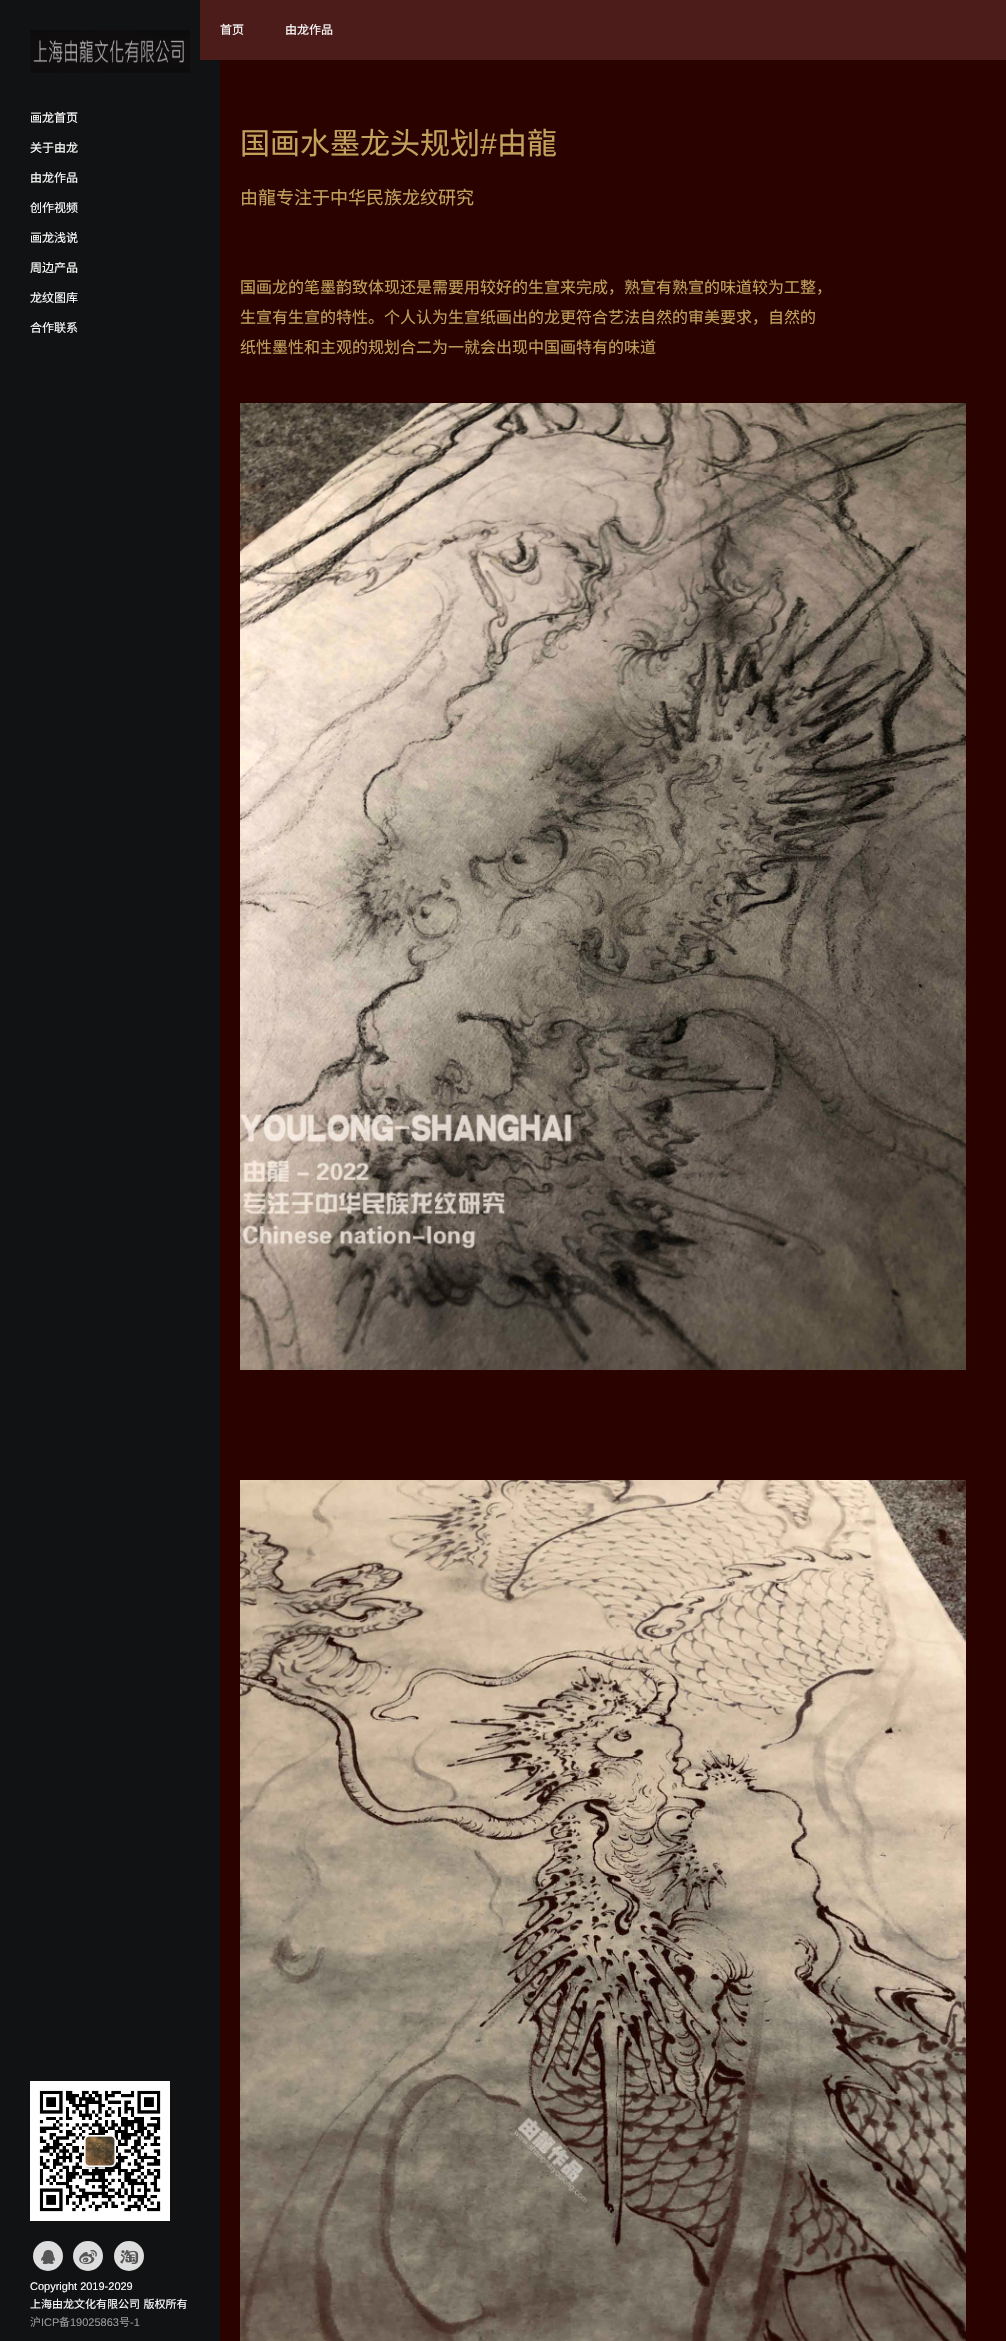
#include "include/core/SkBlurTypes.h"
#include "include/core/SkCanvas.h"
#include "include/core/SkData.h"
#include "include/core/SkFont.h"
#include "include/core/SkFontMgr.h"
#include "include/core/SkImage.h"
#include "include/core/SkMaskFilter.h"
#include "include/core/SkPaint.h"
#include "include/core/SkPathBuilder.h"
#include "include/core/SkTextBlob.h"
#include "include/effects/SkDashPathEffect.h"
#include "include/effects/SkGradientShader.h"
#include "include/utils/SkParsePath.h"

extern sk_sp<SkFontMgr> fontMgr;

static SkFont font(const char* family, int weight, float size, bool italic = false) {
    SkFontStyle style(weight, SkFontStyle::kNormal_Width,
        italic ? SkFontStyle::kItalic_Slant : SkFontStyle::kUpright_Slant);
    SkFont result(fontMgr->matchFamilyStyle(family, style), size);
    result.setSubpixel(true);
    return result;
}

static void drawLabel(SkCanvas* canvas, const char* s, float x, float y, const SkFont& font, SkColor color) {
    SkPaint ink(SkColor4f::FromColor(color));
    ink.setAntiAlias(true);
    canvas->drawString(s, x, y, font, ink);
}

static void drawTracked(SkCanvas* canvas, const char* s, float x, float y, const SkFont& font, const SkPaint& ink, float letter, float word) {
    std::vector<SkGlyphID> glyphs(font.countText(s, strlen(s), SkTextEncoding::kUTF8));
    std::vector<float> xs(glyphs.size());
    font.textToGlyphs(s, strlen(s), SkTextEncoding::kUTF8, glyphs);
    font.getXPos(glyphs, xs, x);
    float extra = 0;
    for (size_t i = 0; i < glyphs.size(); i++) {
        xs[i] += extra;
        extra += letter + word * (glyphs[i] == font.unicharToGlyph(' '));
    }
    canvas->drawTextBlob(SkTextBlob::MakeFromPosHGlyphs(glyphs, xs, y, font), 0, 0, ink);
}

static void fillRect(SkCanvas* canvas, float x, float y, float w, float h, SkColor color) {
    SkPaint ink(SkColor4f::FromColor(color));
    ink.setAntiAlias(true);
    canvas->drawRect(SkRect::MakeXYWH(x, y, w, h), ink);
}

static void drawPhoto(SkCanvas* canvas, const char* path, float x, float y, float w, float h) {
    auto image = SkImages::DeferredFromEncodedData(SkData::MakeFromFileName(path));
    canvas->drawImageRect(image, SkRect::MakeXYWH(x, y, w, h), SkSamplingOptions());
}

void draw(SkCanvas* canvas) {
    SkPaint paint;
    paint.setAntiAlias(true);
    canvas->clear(0xFF2A0200);
    fillRect(canvas, 0, 0, 220, 2341, 0xFF111213);
    drawPhoto(canvas, "assets/img1.png", 30, 30, 160, 43);
    SkFont font1 = font("Noto Sans CJK SC", 400, 12);
    drawLabel(canvas, "画龙首页", 30, 122, font1, 0xFFFFFFFF);
    drawLabel(canvas, "关于由龙", 30, 152, font1, 0xFFFFFFFF);
    drawLabel(canvas, "由龙作品", 30, 182, font1, 0xFFFFFFFF);
    drawLabel(canvas, "创作视频", 30, 212, font1, 0xFFFFFFFF);
    drawLabel(canvas, "画龙浅说", 30, 242, font1, 0xFFFFFFFF);
    drawLabel(canvas, "周边产品", 30, 272, font1, 0xFFFFFFFF);
    drawLabel(canvas, "龙纹图库", 30, 302, font1, 0xFFFFFFFF);
    drawLabel(canvas, "合作联系", 30, 332, font1, 0xFFFFFFFF);
    drawPhoto(canvas, "assets/img2.png", 30, 2081, 140, 140);
    paint.setColor(0xFFDDDDDD);
    canvas->drawCircle(48, 2256, 15, paint);
    drawPhoto(canvas, "assets/img3.png", 41, 2249, 14, 16);
    canvas->drawCircle(88, 2256, 15, paint);
    drawPhoto(canvas, "assets/img4.png", 79, 2249, 18, 15);
    canvas->drawCircle(129, 2256, 15, paint);
    drawPhoto(canvas, "assets/img5.png", 120, 2250, 19, 14);
    SkFont font2 = font("Liberation Sans", 400, 11);
    drawLabel(canvas, "Copyright 2019-2029", 30, 2290, font2, 0xFFFFFFFF);
    SkFont font3 = font("Noto Sans CJK SC", 400, 11);
    paint.setColor(0xFFFFFFFF);
    drawTracked(canvas, "上海由龙文化有限公司 版权所有", 30, 2308, font3, paint, 0, 1);
    drawLabel(canvas, "沪", 30, 2326, font3, 0xFF999999);
    drawLabel(canvas, "ICP", 41, 2326, font2, 0xFF999999);
    drawLabel(canvas, "备", 59, 2326, font3, 0xFF999999);
    drawLabel(canvas, "19025863", 70, 2326, font2, 0xFF999999);
    drawLabel(canvas, "号", 119, 2326, font3, 0xFF999999);
    drawLabel(canvas, "-1", 130, 2326, font2, 0xFF999999);
    fillRect(canvas, 200, 0, 806, 60, 0xFF4C1C1A);
    fillRect(canvas, 264, 0, 1, 60, 0xFF481C1B);
    drawLabel(canvas, "首页", 220, 34, font1, 0xFFFFFFFF);
    fillRect(canvas, 353, 0, 1, 60, 0xFF481C1B);
    drawLabel(canvas, "由龙作品", 285, 34, font1, 0xFFFFFFFF);
    SkFont font4 = font("Noto Sans CJK SC", 400, 30);
    drawLabel(canvas, "国画水墨龙头规划", 240, 154, font4, 0xFFC2A15C);
    SkFont font5 = font("Liberation Sans", 400, 30);
    drawLabel(canvas, "#", 480, 154, font5, 0xFFC2A15C);
    drawLabel(canvas, "由龍", 497, 154, font4, 0xFFC2A15C);
    SkFont font6 = font("Noto Sans CJK SC", 400, 18);
    drawLabel(canvas, "由龍专注于中华民族龙纹研究", 240, 204, font6, 0xFFC2A15C);
    SkFont font7 = font("Noto Sans CJK SC", 400, 16);
    drawLabel(canvas, "国画龙的笔墨韵致体现还是需要用较好的生宣来完成，熟宣有熟宣的味道较为工整，", 240, 293, font7, 0xFFC2A15C);
    drawLabel(canvas, "生宣有生宣的特性。个人认为生宣纸画出的龙更符合艺法自然的审美要求，自然的", 240, 323, font7, 0xFFC2A15C);
    drawLabel(canvas, "纸性墨性和主观的规划合二为一就会出现中国画特有的味道", 240, 353, font7, 0xFFC2A15C);
    drawPhoto(canvas, "assets/img6.png", 240, 403, 726, 967);
    drawPhoto(canvas, "assets/img7.png", 240, 1480, 726, 861);
}
